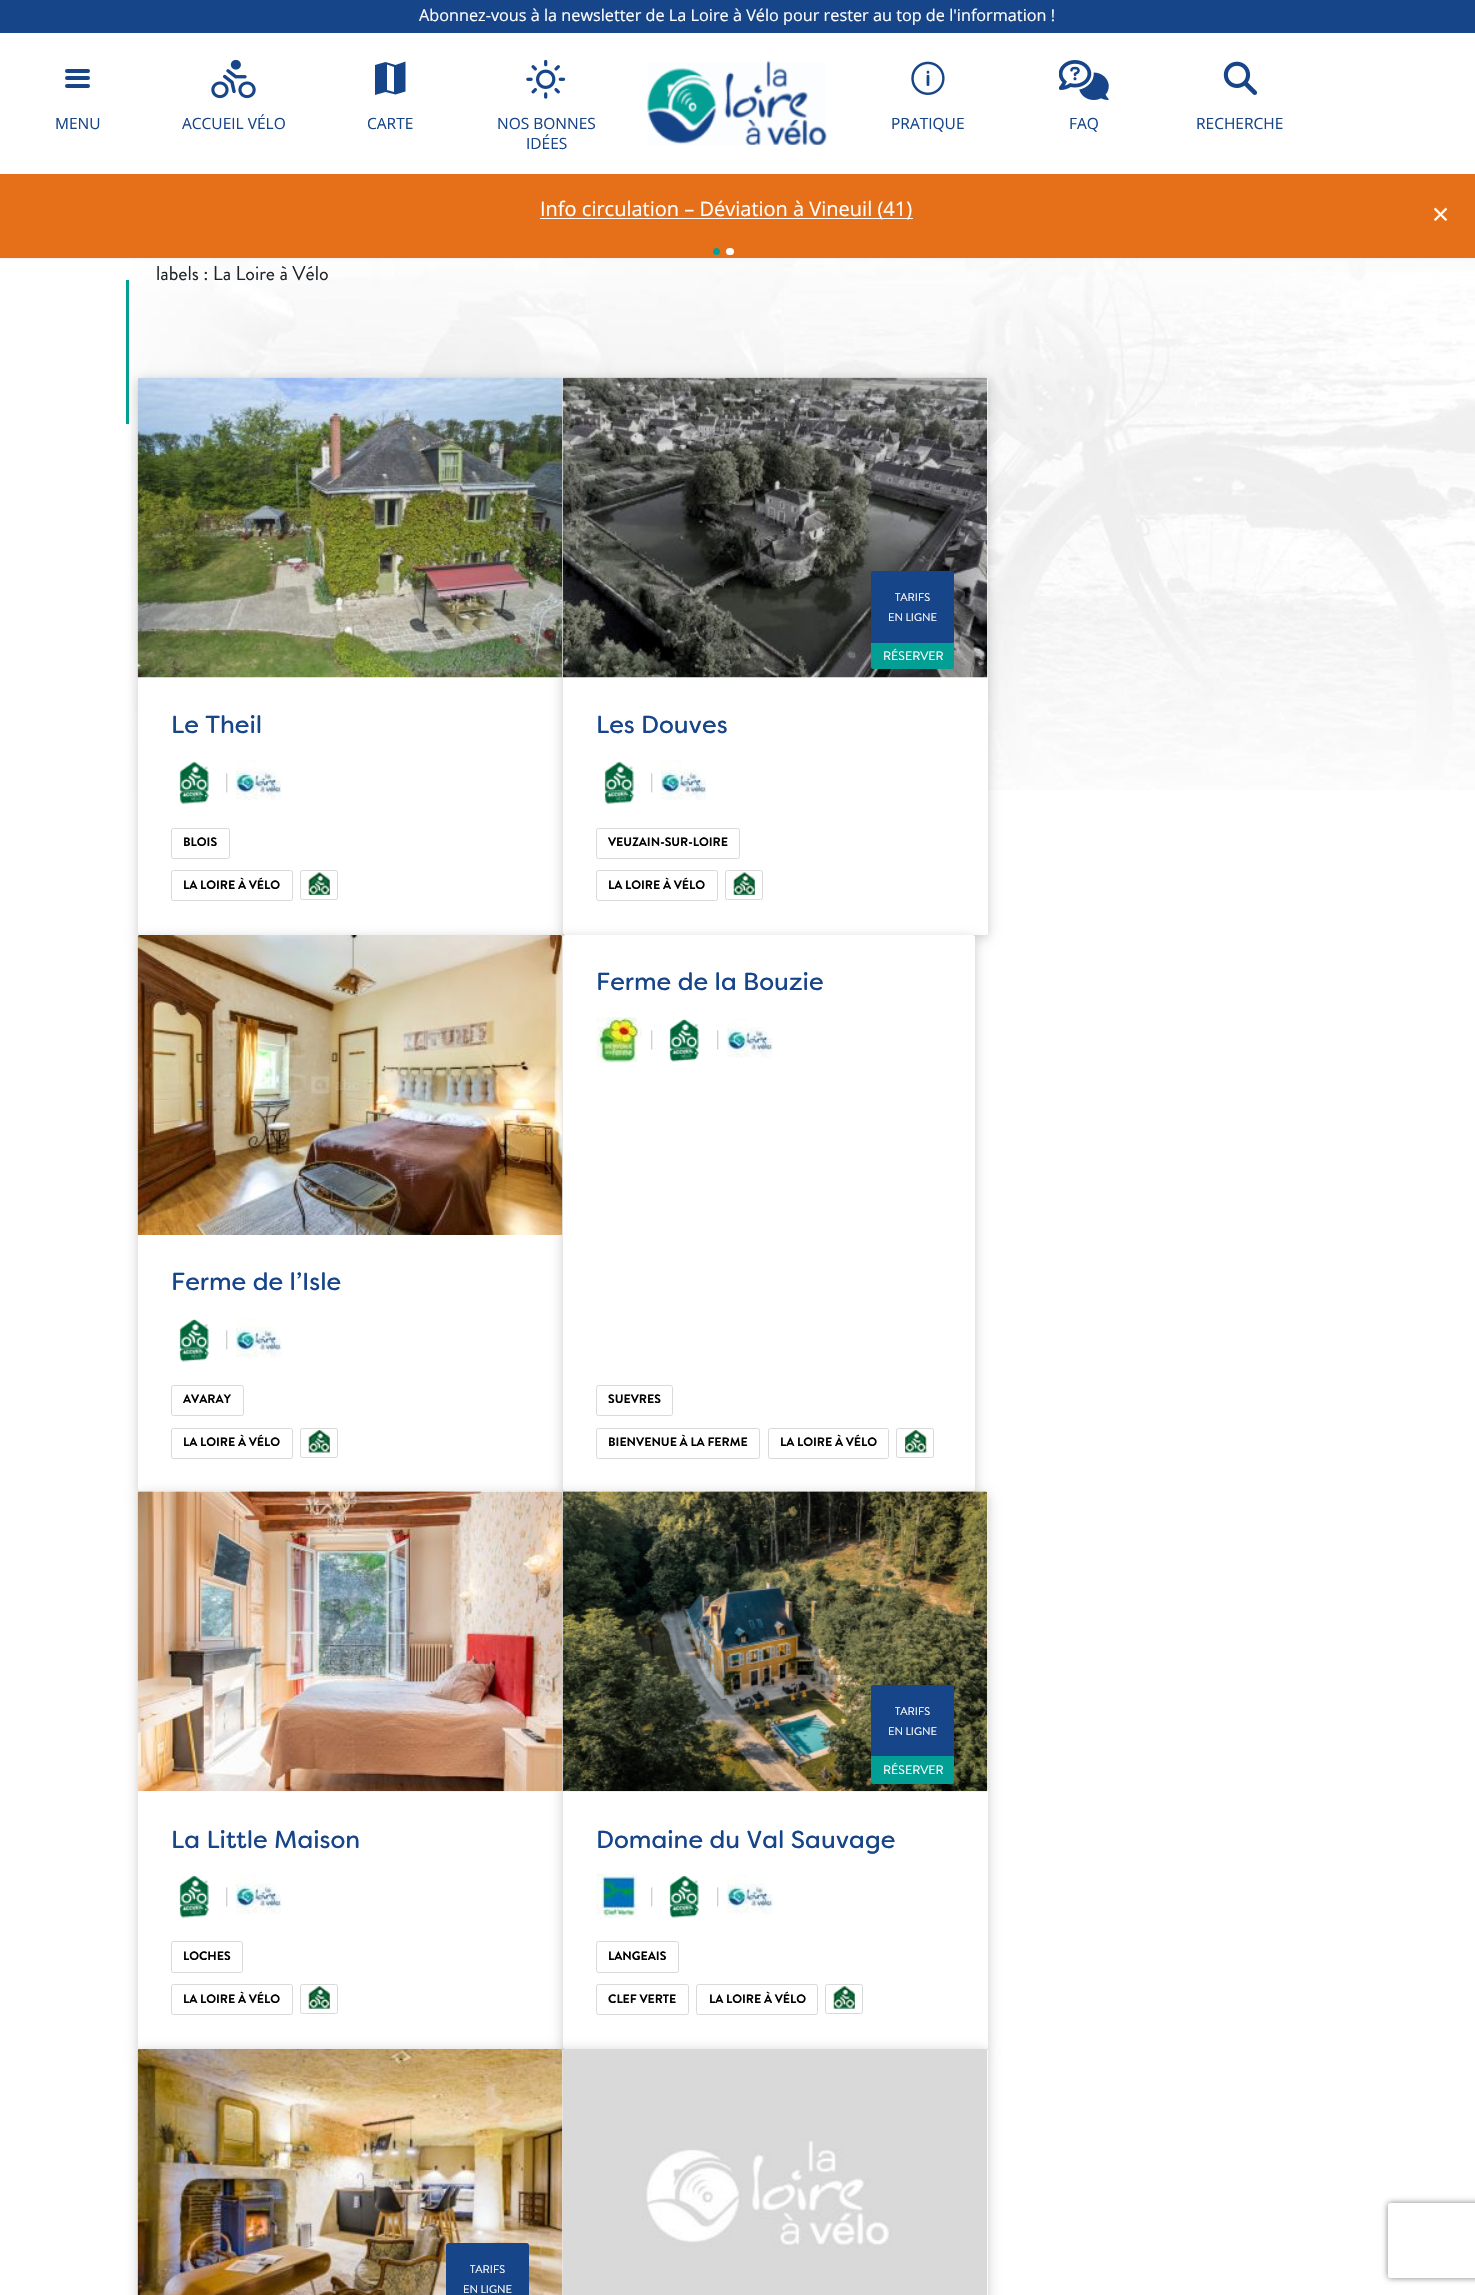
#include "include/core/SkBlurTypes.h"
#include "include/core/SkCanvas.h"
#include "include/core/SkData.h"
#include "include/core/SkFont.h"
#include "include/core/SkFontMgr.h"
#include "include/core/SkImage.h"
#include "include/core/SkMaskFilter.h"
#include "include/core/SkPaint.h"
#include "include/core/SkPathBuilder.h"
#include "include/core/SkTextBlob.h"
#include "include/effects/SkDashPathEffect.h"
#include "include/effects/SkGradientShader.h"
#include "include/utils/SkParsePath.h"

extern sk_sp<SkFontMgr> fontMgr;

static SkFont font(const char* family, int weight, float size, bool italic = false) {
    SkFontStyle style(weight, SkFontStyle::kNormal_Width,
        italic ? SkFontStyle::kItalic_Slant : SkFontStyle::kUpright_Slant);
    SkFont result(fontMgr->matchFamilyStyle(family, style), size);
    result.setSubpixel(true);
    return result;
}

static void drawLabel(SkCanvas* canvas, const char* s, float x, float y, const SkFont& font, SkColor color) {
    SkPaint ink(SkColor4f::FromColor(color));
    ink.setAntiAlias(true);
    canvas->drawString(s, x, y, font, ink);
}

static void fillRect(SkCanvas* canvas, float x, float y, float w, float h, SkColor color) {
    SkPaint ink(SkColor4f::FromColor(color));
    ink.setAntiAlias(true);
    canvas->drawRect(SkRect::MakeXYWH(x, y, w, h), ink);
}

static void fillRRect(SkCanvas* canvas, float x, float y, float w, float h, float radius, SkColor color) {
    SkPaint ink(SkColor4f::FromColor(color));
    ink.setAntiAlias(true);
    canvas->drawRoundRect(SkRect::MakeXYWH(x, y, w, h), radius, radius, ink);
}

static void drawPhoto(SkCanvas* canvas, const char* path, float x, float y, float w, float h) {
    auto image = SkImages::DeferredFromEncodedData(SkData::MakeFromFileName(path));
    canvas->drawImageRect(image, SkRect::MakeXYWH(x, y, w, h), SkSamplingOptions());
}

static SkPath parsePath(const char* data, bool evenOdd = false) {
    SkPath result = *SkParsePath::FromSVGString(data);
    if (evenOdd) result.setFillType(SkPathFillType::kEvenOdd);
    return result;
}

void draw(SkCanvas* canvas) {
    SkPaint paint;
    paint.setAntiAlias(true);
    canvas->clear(0xFFFFFFFF);
    drawPhoto(canvas, "assets/img7.png", 131, 259, 1344, 531);
    paint.setColor(0x0D000000);
    paint.setMaskFilter(SkMaskFilter::MakeBlur(kNormal_SkBlurStyle, 1));
    canvas->drawRect(SkRect::MakeXYWH(0, 1, 1475, 258), paint);
    paint.setMaskFilter(nullptr);
    fillRect(canvas, 0, 33, 1475, 141, 0xFFFFFFFF);
    fillRect(canvas, 0, 0, 1475, 33, 0xFF174589);
    SkFont font1 = font("Open Sans", 400, 16.25f);
    drawLabel(canvas, "Abonnez-vous à la newsletter de La Loire à Vélo pour rester au top de l'information !", 419, 21, font1, 0xFFFFFFFF);
    fillRRect(canvas, 65, 69, 25, 4, 2, 0xFF174589);
    fillRRect(canvas, 65, 76, 25, 4, 2, 0xFF174589);
    fillRRect(canvas, 65, 84, 25, 4, 2, 0xFF174589);
    SkFont font2 = font("Open Sans", 400, 15.5f);
    drawLabel(canvas, "MENU", 55, 129, font2, 0xFF174589);
    drawPhoto(canvas, "assets/img1.png", 211, 59, 45, 40);
    drawLabel(canvas, "ACCUEIL VÉLO", 182, 129, font2, 0xFF174589);
    paint.setColor(0xFF174589);
    canvas->drawPath(parsePath("M405.5 61.5L395.5 65L385.5 62L375 65V95L385.5 92L395.5 94.5L405.5 91.5ZM387 64.5L394 67V92L387 90Z"), paint);
    drawLabel(canvas, "CARTE", 367, 129, font2, 0xFF174589);
    drawPhoto(canvas, "assets/img2.png", 526, 59, 40, 40);
    drawLabel(canvas, "NOS BONNES", 497, 129, font2, 0xFF174589);
    drawLabel(canvas, "IDÉES", 526, 149, font2, 0xFF174589);
    drawPhoto(canvas, "assets/img3.png", 647, 61, 180, 84);
    drawPhoto(canvas, "assets/img4.png", 911, 61, 34, 34);
    drawLabel(canvas, "PRATIQUE", 891, 129, font2, 0xFF174589);
    drawPhoto(canvas, "assets/img5.png", 1059, 60, 50, 40);
    drawLabel(canvas, "FAQ", 1069, 129, font2, 0xFF174589);
    drawPhoto(canvas, "assets/img6.png", 1223, 61, 35, 34);
    drawLabel(canvas, "RECHERCHE", 1196, 129, font2, 0xFF174589);
    fillRect(canvas, 0, 174, 1475, 84, 0xFFE6701A);
    fillRect(canvas, 540, 218, 373, 1, 0xFFFFFFFF);
    SkFont font3 = font("Open Sans", 400, 20);
    drawLabel(canvas, "Info circulation – Déviation à Vineuil (41)", 540, 216, font3, 0xFFFFFFFF);
    paint.setColor(0xFF049F94);
    canvas->drawCircle(716.5f, 251.5f, 3.5f, paint);
    fillRRect(canvas, 726, 248, 8, 7, 3.5f, 0xFFFFFFFF);
    SkFont font4 = font("Open Sans", 400, 30);
    drawLabel(canvas, "×", 1432, 225, font4, 0xFFFFFFFF);
    fillRect(canvas, 126, 280, 3, 144, 0xFF049F94);
    SkFont font5 = font("Brandon Grotesque", 400, 20);
    drawLabel(canvas, "labels : La Loire à Vélo", 156, 280, font5, 0xFF212529);
    paint.setColor(0x33000000);
    paint.setMaskFilter(SkMaskFilter::MakeBlur(kNormal_SkBlurStyle, 6));
    canvas->drawRoundRect(SkRect::MakeXYWH(138, 380, 425, 558), 2.5f, 2.5f, paint);
    paint.setMaskFilter(nullptr);
    fillRRect(canvas, 138, 378, 425, 557, 2.5f, 0xFFFFFFFF);
    paint.setMaskFilter(SkMaskFilter::MakeBlur(kNormal_SkBlurStyle, 6));
    canvas->drawRoundRect(SkRect::MakeXYWH(563, 380, 425, 558), 2.5f, 2.5f, paint);
    paint.setMaskFilter(nullptr);
    drawPhoto(canvas, "assets/img8.png", 137, 377, 426, 301);
    SkFont font6 = font("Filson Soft", 400, 24.5f);
    drawLabel(canvas, "Le Theil", 171, 733, font6, 0xFF174589);
    drawPhoto(canvas, "assets/img9.png", 179, 761, 30, 43);
    SkFont font7 = font("Brandon Grotesque", 400, 18);
    drawLabel(canvas, "|", 225, 787, font7, 0xFFBBBBBB);
    drawPhoto(canvas, "assets/img10.png", 236, 760, 46, 40);
    paint.setStroke(true);
    paint.setStrokeWidth(1);
    paint.setColor(0xFFD9D9D9);
    canvas->drawRoundRect(SkRect::MakeXYWH(171.5f, 828.5f, 58, 30), 2, 2, paint);
    SkFont font8 = font("Brandon Grotesque", 700, 12.25f);
    drawLabel(canvas, "BLOIS", 183, 846, font8, 0xFF000000);
    canvas->drawRoundRect(SkRect::MakeXYWH(171.5f, 870.5f, 121, 30), 2, 2, paint);
    drawLabel(canvas, "LA LOIRE À VÉLO", 183, 889, font8, 0xFF000000);
    canvas->drawRoundRect(SkRect::MakeXYWH(300.5f, 870.5f, 37, 29), 2, 2, paint);
    drawPhoto(canvas, "assets/img11.png", 308, 872, 22, 23);
    fillRRect(canvas, 563, 378, 425, 557, 2.5f, 0xFFFFFFFF);
    drawPhoto(canvas, "assets/img12.png", 562, 377, 426, 301);
    fillRRect(canvas, 871, 571, 83, 73, 2.5f, 0xFF174589);
    SkFont font9 = font("Brandon Grotesque", 400, 11);
    drawLabel(canvas, "TARIFS", 895, 601, font9, 0xFFFFFFFF);
    drawLabel(canvas, "EN LIGNE", 888, 621, font9, 0xFFFFFFFF);
    paint.setStroke(false);
    paint.setColor(0xFF049F94);
    canvas->drawPath(parsePath("M871 643H954V666.5C954 668 953 669 951.5 669H873.5C872 669 871 668 871 666.5Z"), paint);
    SkFont font10 = font("Brandon Grotesque", 400, 12.25f);
    drawLabel(canvas, "RÉSERVER", 883, 660, font10, 0xFFFFFFFF);
    drawLabel(canvas, "Les Douves", 596, 733, font6, 0xFF174589);
    drawPhoto(canvas, "assets/img9.png", 604, 761, 30, 43);
    drawLabel(canvas, "|", 650, 787, font7, 0xFFBBBBBB);
    drawPhoto(canvas, "assets/img13.png", 661, 760, 46, 40);
    paint.setStroke(true);
    paint.setColor(0xFFD9D9D9);
    canvas->drawRoundRect(SkRect::MakeXYWH(596.5f, 828.5f, 143, 30), 2, 2, paint);
    drawLabel(canvas, "VEUZAIN-SUR-LOIRE", 608, 846, font8, 0xFF000000);
    canvas->drawRoundRect(SkRect::MakeXYWH(596.5f, 870.5f, 121, 30), 2, 2, paint);
    drawLabel(canvas, "LA LOIRE À VÉLO", 608, 889, font8, 0xFF000000);
    canvas->drawRoundRect(SkRect::MakeXYWH(725.5f, 870.5f, 37, 29), 2, 2, paint);
    drawPhoto(canvas, "assets/img14.png", 733, 872, 22, 23);
    paint.setStroke(false);
    paint.setColor(0x33000000);
    paint.setMaskFilter(SkMaskFilter::MakeBlur(kNormal_SkBlurStyle, 6));
    canvas->drawRoundRect(SkRect::MakeXYWH(138, 938, 425, 556), 2.5f, 2.5f, paint);
    paint.setMaskFilter(nullptr);
    fillRRect(canvas, 138, 935, 425, 556, 2.5f, 0xFFFFFFFF);
    paint.setMaskFilter(SkMaskFilter::MakeBlur(kNormal_SkBlurStyle, 6));
    canvas->drawRoundRect(SkRect::MakeXYWH(563, 938, 412, 556), 2.5f, 2.5f, paint);
    paint.setMaskFilter(nullptr);
    drawPhoto(canvas, "assets/img15.png", 137, 935, 426, 300);
    drawLabel(canvas, "Ferme de l’Isle", 171, 1290, font6, 0xFF174589);
    drawPhoto(canvas, "assets/img16.png", 179, 1318, 30, 44);
    drawLabel(canvas, "|", 225, 1344, font7, 0xFFBBBBBB);
    drawPhoto(canvas, "assets/img17.png", 236, 1318, 46, 40);
    paint.setStroke(true);
    paint.setColor(0xFFD9D9D9);
    canvas->drawRoundRect(SkRect::MakeXYWH(171.5f, 1385.5f, 72, 30), 2, 2, paint);
    drawLabel(canvas, "AVARAY", 183, 1403, font8, 0xFF000000);
    canvas->drawRoundRect(SkRect::MakeXYWH(171.5f, 1428.5f, 121, 30), 2, 2, paint);
    drawLabel(canvas, "LA LOIRE À VÉLO", 183, 1446, font8, 0xFF000000);
    canvas->drawRoundRect(SkRect::MakeXYWH(300.5f, 1428.5f, 37, 29), 2, 2, paint);
    drawPhoto(canvas, "assets/img18.png", 308, 1430, 22, 23);
    fillRRect(canvas, 563, 935, 412, 556, 2.5f, 0xFFFFFFFF);
    drawLabel(canvas, "Ferme de la Bouzie", 596, 990, font6, 0xFF174589);
    drawPhoto(canvas, "assets/img19.png", 596, 1017, 46, 46);
    drawLabel(canvas, "|", 650, 1044, font7, 0xFFBBBBBB);
    drawPhoto(canvas, "assets/img16.png", 669, 1018, 30, 44);
    drawLabel(canvas, "|", 716, 1044, font7, 0xFFBBBBBB);
    drawPhoto(canvas, "assets/img20.png", 727, 1018, 46, 40);
    canvas->drawRoundRect(SkRect::MakeXYWH(596.5f, 1385.5f, 76, 30), 2, 2, paint);
    drawLabel(canvas, "SUEVRES", 608, 1403, font8, 0xFF000000);
    canvas->drawRoundRect(SkRect::MakeXYWH(596.5f, 1428.5f, 163, 30), 2, 2, paint);
    drawLabel(canvas, "BIENVENUE À LA FERME", 608, 1446, font8, 0xFF000000);
    canvas->drawRoundRect(SkRect::MakeXYWH(768.5f, 1428.5f, 120, 30), 2, 2, paint);
    drawLabel(canvas, "LA LOIRE À VÉLO", 780, 1446, font8, 0xFF000000);
    canvas->drawRoundRect(SkRect::MakeXYWH(896.5f, 1428.5f, 37, 29), 2, 2, paint);
    drawPhoto(canvas, "assets/img21.png", 905, 1430, 22, 23);
    paint.setStroke(false);
    paint.setColor(0x33000000);
    paint.setMaskFilter(SkMaskFilter::MakeBlur(kNormal_SkBlurStyle, 6));
    canvas->drawRoundRect(SkRect::MakeXYWH(138, 1494, 425, 557), 2.5f, 2.5f, paint);
    paint.setMaskFilter(nullptr);
    fillRRect(canvas, 138, 1491, 425, 558, 2.5f, 0xFFFFFFFF);
    paint.setMaskFilter(SkMaskFilter::MakeBlur(kNormal_SkBlurStyle, 6));
    canvas->drawRoundRect(SkRect::MakeXYWH(563, 1494, 425, 557), 2.5f, 2.5f, paint);
    paint.setMaskFilter(nullptr);
    drawPhoto(canvas, "assets/img22.png", 137, 1491, 426, 301);
    drawLabel(canvas, "La Little Maison", 171, 1848, font6, 0xFF174589);
    drawPhoto(canvas, "assets/img23.png", 179, 1875, 30, 43);
    drawLabel(canvas, "|", 225, 1901, font7, 0xFFBBBBBB);
    drawPhoto(canvas, "assets/img24.png", 236, 1874, 46, 40);
    paint.setStroke(true);
    paint.setColor(0xFFD9D9D9);
    canvas->drawRoundRect(SkRect::MakeXYWH(171.5f, 1941.5f, 71, 31), 2, 2, paint);
    drawLabel(canvas, "LOCHES", 183, 1960, font8, 0xFF000000);
    canvas->drawRoundRect(SkRect::MakeXYWH(171.5f, 1984.5f, 121, 30), 2, 2, paint);
    drawLabel(canvas, "LA LOIRE À VÉLO", 183, 2003, font8, 0xFF000000);
    canvas->drawRoundRect(SkRect::MakeXYWH(300.5f, 1984.5f, 37, 29), 2, 2, paint);
    drawPhoto(canvas, "assets/img25.png", 308, 1986, 22, 23);
    fillRRect(canvas, 563, 1491, 425, 558, 2.5f, 0xFFFFFFFF);
    drawPhoto(canvas, "assets/img26.png", 562, 1491, 426, 301);
    fillRRect(canvas, 871, 1685, 83, 74, 2.5f, 0xFF174589);
    drawLabel(canvas, "TARIFS", 895, 1715, font9, 0xFFFFFFFF);
    drawLabel(canvas, "EN LIGNE", 888, 1735, font9, 0xFFFFFFFF);
    paint.setStroke(false);
    paint.setColor(0xFF049F94);
    canvas->drawPath(parsePath("M871 1756H954V1781.5C954 1783 953 1784 951.5 1784H873.5C872 1784 871 1783 871 1781.5Z"), paint);
    drawLabel(canvas, "RÉSERVER", 883, 1774, font10, 0xFFFFFFFF);
    drawLabel(canvas, "Domaine du Val Sauvage", 596, 1848, font6, 0xFF174589);
    drawPhoto(canvas, "assets/img27.png", 596, 1873, 41, 46);
    drawLabel(canvas, "|", 650, 1901, font7, 0xFFBBBBBB);
    drawPhoto(canvas, "assets/img23.png", 669, 1875, 30, 43);
    drawLabel(canvas, "|", 716, 1901, font7, 0xFFBBBBBB);
    drawPhoto(canvas, "assets/img28.png", 727, 1874, 46, 40);
    paint.setStroke(true);
    paint.setColor(0xFFD9D9D9);
    canvas->drawRoundRect(SkRect::MakeXYWH(596.5f, 1941.5f, 82, 31), 2, 2, paint);
    drawLabel(canvas, "LANGEAIS", 608, 1960, font8, 0xFF000000);
    canvas->drawRoundRect(SkRect::MakeXYWH(596.5f, 1984.5f, 92, 30), 2, 2, paint);
    drawLabel(canvas, "CLEF VERTE", 608, 2003, font8, 0xFF000000);
    canvas->drawRoundRect(SkRect::MakeXYWH(696.5f, 1984.5f, 121, 30), 2, 2, paint);
    drawLabel(canvas, "LA LOIRE À VÉLO", 709, 2003, font8, 0xFF000000);
    canvas->drawRoundRect(SkRect::MakeXYWH(825.5f, 1984.5f, 37, 29), 2, 2, paint);
    drawPhoto(canvas, "assets/img29.png", 833, 1986, 22, 23);
    paint.setStroke(false);
    paint.setColor(0x33000000);
    paint.setMaskFilter(SkMaskFilter::MakeBlur(kNormal_SkBlurStyle, 6));
    canvas->drawRoundRect(SkRect::MakeXYWH(138, 2051, 425, 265), 2.5f, 2.5f, paint);
    paint.setMaskFilter(nullptr);
    fillRRect(canvas, 138, 2049, 425, 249, 2.5f, 0xFFFFFFFF);
    paint.setMaskFilter(SkMaskFilter::MakeBlur(kNormal_SkBlurStyle, 6));
    canvas->drawRoundRect(SkRect::MakeXYWH(563, 2051, 425, 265), 2.5f, 2.5f, paint);
    paint.setMaskFilter(nullptr);
    drawPhoto(canvas, "assets/img30.png", 137, 2049, 426, 246);
    fillRRect(canvas, 446, 2243, 83, 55, 2.5f, 0xFF174589);
    drawLabel(canvas, "TARIFS", 470, 2273, font9, 0xFFFFFFFF);
    drawLabel(canvas, "EN LIGNE", 463, 2293, font9, 0xFFFFFFFF);
    fillRRect(canvas, 563, 2049, 425, 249, 2.5f, 0xFFFFFFFF);
    drawPhoto(canvas, "assets/img31.png", 563, 2049, 425, 246);
    canvas->save();
    canvas->clipPath(parsePath("M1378 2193H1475V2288H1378ZM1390.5 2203H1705.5C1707 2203 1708 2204 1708 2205.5V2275.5C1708 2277 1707 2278 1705.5 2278H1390.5C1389 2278 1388 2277 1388 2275.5V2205.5C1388 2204 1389 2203 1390.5 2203Z", true), true);
    paint.setColor(0xFF808080);
    paint.setMaskFilter(SkMaskFilter::MakeBlur(kNormal_SkBlurStyle, 3));
    canvas->drawRoundRect(SkRect::MakeXYWH(1388, 2203, 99, 75), 2.5f, 2.5f, paint);
    paint.setMaskFilter(nullptr);
    canvas->restore();
}
